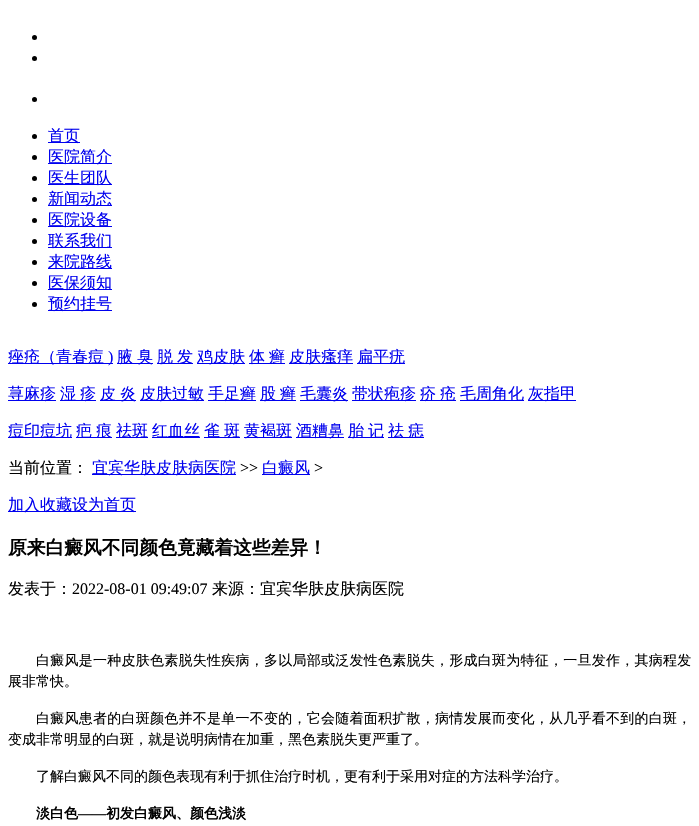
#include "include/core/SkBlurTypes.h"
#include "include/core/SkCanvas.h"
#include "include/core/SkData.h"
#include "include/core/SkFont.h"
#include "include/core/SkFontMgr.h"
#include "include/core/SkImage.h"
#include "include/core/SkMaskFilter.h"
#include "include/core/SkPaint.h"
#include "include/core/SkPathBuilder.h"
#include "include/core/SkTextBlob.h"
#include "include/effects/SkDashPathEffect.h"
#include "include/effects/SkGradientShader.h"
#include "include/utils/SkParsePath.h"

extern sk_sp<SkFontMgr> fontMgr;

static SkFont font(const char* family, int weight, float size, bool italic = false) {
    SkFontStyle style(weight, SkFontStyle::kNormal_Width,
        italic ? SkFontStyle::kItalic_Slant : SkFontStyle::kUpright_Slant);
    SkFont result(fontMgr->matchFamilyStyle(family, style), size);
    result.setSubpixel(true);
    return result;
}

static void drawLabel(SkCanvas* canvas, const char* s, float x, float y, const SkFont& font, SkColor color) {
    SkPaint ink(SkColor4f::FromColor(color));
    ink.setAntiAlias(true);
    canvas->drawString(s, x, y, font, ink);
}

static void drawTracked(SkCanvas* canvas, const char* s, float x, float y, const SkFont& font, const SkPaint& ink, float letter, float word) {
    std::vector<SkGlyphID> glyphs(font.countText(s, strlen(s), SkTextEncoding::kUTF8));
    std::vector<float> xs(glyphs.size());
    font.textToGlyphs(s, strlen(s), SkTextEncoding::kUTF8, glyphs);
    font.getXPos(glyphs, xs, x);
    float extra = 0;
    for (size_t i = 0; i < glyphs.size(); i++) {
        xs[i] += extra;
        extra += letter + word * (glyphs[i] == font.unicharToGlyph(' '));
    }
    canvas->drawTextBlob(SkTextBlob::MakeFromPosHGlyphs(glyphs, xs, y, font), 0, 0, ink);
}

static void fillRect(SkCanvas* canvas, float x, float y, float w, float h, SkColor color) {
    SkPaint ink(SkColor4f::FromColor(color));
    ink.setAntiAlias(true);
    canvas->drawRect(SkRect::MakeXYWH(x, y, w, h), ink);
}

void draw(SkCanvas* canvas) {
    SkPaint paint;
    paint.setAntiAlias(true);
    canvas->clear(0xFFFFFFFF);
    paint.setColor(0xFF000000);
    canvas->drawCircle(34.5f, 37.5f, 2.5f, paint);
    canvas->drawCircle(34.5f, 58.5f, 2.5f, paint);
    canvas->drawCircle(34.5f, 99.5f, 2.5f, paint);
    canvas->drawCircle(34.5f, 136.5f, 2.5f, paint);
    fillRect(canvas, 48, 142, 32, 1, 0xFF0000EE);
    SkFont font1 = font("WenQuanYi Zen Hei", 500, 16);
    drawLabel(canvas, "首页", 48, 141, font1, 0xFF0000EE);
    canvas->drawCircle(34.5f, 157.5f, 2.5f, paint);
    fillRect(canvas, 48, 163, 64, 1, 0xFF0000EE);
    drawLabel(canvas, "医院简介", 48, 162, font1, 0xFF0000EE);
    canvas->drawCircle(34.5f, 178.5f, 2.5f, paint);
    fillRect(canvas, 48, 184, 64, 1, 0xFF0000EE);
    drawLabel(canvas, "医生团队", 48, 183, font1, 0xFF0000EE);
    canvas->drawCircle(34.5f, 199.5f, 2.5f, paint);
    fillRect(canvas, 48, 205, 64, 1, 0xFF0000EE);
    drawLabel(canvas, "新闻动态", 48, 204, font1, 0xFF0000EE);
    canvas->drawCircle(34.5f, 220.5f, 2.5f, paint);
    fillRect(canvas, 48, 226, 64, 1, 0xFF0000EE);
    drawLabel(canvas, "医院设备", 48, 225, font1, 0xFF0000EE);
    canvas->drawCircle(34.5f, 241.5f, 2.5f, paint);
    fillRect(canvas, 48, 247, 64, 1, 0xFF0000EE);
    drawLabel(canvas, "联系我们", 48, 246, font1, 0xFF0000EE);
    canvas->drawCircle(34.5f, 262.5f, 2.5f, paint);
    fillRect(canvas, 48, 268, 64, 1, 0xFF0000EE);
    drawLabel(canvas, "来院路线", 48, 267, font1, 0xFF0000EE);
    canvas->drawCircle(34.5f, 283.5f, 2.5f, paint);
    fillRect(canvas, 48, 289, 64, 1, 0xFF0000EE);
    drawLabel(canvas, "医保须知", 48, 288, font1, 0xFF0000EE);
    canvas->drawCircle(34.5f, 304.5f, 2.5f, paint);
    fillRect(canvas, 48, 310, 64, 1, 0xFF0000EE);
    drawLabel(canvas, "预约挂号", 48, 309, font1, 0xFF0000EE);
    fillRect(canvas, 8, 363, 105, 1, 0xFF0000EE);
    drawLabel(canvas, "痤疮（青春痘", 8, 362, font1, 0xFF0000EE);
    SkFont font2 = font("Liberation Serif", 400, 16);
    drawLabel(canvas, ")", 108, 362, font2, 0xFF0000EE);
    fillRect(canvas, 117, 363, 36, 1, 0xFF0000EE);
    drawLabel(canvas, "腋", 117, 362, font1, 0xFF0000EE);
    drawLabel(canvas, "臭", 137, 362, font1, 0xFF0000EE);
    fillRect(canvas, 157, 363, 36, 1, 0xFF0000EE);
    drawLabel(canvas, "脱", 157, 362, font1, 0xFF0000EE);
    drawLabel(canvas, "发", 177, 362, font1, 0xFF0000EE);
    fillRect(canvas, 197, 363, 48, 1, 0xFF0000EE);
    drawLabel(canvas, "鸡皮肤", 197, 362, font1, 0xFF0000EE);
    fillRect(canvas, 249, 363, 36, 1, 0xFF0000EE);
    drawLabel(canvas, "体", 249, 362, font1, 0xFF0000EE);
    drawLabel(canvas, "癣", 269, 362, font1, 0xFF0000EE);
    fillRect(canvas, 289, 363, 64, 1, 0xFF0000EE);
    drawLabel(canvas, "皮肤瘙痒", 289, 362, font1, 0xFF0000EE);
    fillRect(canvas, 357, 363, 48, 1, 0xFF0000EE);
    drawLabel(canvas, "扁平疣", 357, 362, font1, 0xFF0000EE);
    fillRect(canvas, 8, 400, 48, 1, 0xFF0000EE);
    drawLabel(canvas, "荨麻疹", 8, 399, font1, 0xFF0000EE);
    fillRect(canvas, 60, 400, 36, 1, 0xFF0000EE);
    drawLabel(canvas, "湿", 60, 399, font1, 0xFF0000EE);
    drawLabel(canvas, "疹", 80, 399, font1, 0xFF0000EE);
    fillRect(canvas, 100, 400, 36, 1, 0xFF0000EE);
    drawLabel(canvas, "皮", 100, 399, font1, 0xFF0000EE);
    drawLabel(canvas, "炎", 120, 399, font1, 0xFF0000EE);
    fillRect(canvas, 140, 400, 64, 1, 0xFF0000EE);
    drawLabel(canvas, "皮肤过敏", 140, 399, font1, 0xFF0000EE);
    fillRect(canvas, 208, 400, 48, 1, 0xFF0000EE);
    drawLabel(canvas, "手足癣", 208, 399, font1, 0xFF0000EE);
    fillRect(canvas, 260, 400, 36, 1, 0xFF0000EE);
    drawLabel(canvas, "股", 260, 399, font1, 0xFF0000EE);
    drawLabel(canvas, "癣", 280, 399, font1, 0xFF0000EE);
    fillRect(canvas, 300, 400, 48, 1, 0xFF0000EE);
    drawLabel(canvas, "毛囊炎", 300, 399, font1, 0xFF0000EE);
    fillRect(canvas, 352, 400, 64, 1, 0xFF0000EE);
    drawLabel(canvas, "带状疱疹", 352, 399, font1, 0xFF0000EE);
    fillRect(canvas, 420, 400, 36, 1, 0xFF0000EE);
    drawLabel(canvas, "疥", 420, 399, font1, 0xFF0000EE);
    drawLabel(canvas, "疮", 440, 399, font1, 0xFF0000EE);
    fillRect(canvas, 460, 400, 64, 1, 0xFF0000EE);
    drawLabel(canvas, "毛周角化", 460, 399, font1, 0xFF0000EE);
    fillRect(canvas, 528, 400, 48, 1, 0xFF0000EE);
    drawLabel(canvas, "灰指甲", 528, 399, font1, 0xFF0000EE);
    fillRect(canvas, 8, 437, 64, 1, 0xFF0000EE);
    drawLabel(canvas, "痘印痘坑", 8, 436, font1, 0xFF0000EE);
    fillRect(canvas, 76, 437, 36, 1, 0xFF0000EE);
    drawLabel(canvas, "疤", 76, 436, font1, 0xFF0000EE);
    drawLabel(canvas, "痕", 96, 436, font1, 0xFF0000EE);
    fillRect(canvas, 116, 437, 32, 1, 0xFF0000EE);
    drawLabel(canvas, "祛斑", 116, 436, font1, 0xFF0000EE);
    fillRect(canvas, 152, 437, 48, 1, 0xFF0000EE);
    drawLabel(canvas, "红血丝", 152, 436, font1, 0xFF0000EE);
    fillRect(canvas, 204, 437, 36, 1, 0xFF0000EE);
    drawLabel(canvas, "雀", 204, 436, font1, 0xFF0000EE);
    drawLabel(canvas, "斑", 224, 436, font1, 0xFF0000EE);
    fillRect(canvas, 244, 437, 48, 1, 0xFF0000EE);
    drawLabel(canvas, "黄褐斑", 244, 436, font1, 0xFF0000EE);
    fillRect(canvas, 296, 437, 48, 1, 0xFF0000EE);
    drawLabel(canvas, "酒糟鼻", 296, 436, font1, 0xFF0000EE);
    fillRect(canvas, 348, 437, 36, 1, 0xFF0000EE);
    drawLabel(canvas, "胎", 348, 436, font1, 0xFF0000EE);
    drawLabel(canvas, "记", 368, 436, font1, 0xFF0000EE);
    fillRect(canvas, 388, 437, 36, 1, 0xFF0000EE);
    drawLabel(canvas, "祛", 388, 436, font1, 0xFF0000EE);
    drawLabel(canvas, "痣", 408, 436, font1, 0xFF0000EE);
    drawLabel(canvas, "当前位置：", 8, 473, font1, 0xFF000000);
    fillRect(canvas, 92, 474, 144, 1, 0xFF0000EE);
    drawLabel(canvas, "宜宾华肤皮肤病医院", 92, 473, font1, 0xFF0000EE);
    drawLabel(canvas, ">>", 240, 473, font2, 0xFF000000);
    fillRect(canvas, 262, 474, 48, 1, 0xFF0000EE);
    drawLabel(canvas, "白癜风", 262, 473, font1, 0xFF0000EE);
    drawLabel(canvas, ">", 314, 473, font2, 0xFF000000);
    fillRect(canvas, 8, 511, 128, 1, 0xFF0000EE);
    drawLabel(canvas, "加入收藏设为首页", 8, 510, font1, 0xFF0000EE);
    SkFont font3 = font("WenQuanYi Zen Hei", 700, 18.75f);
    drawLabel(canvas, "原来白癜风不同颜色竟藏着这些差异！", 8, 554, font3, 0xFF000000);
    drawLabel(canvas, "发表于：", 8, 594, font1, 0xFF000000);
    drawLabel(canvas, "2022-08-01 09:49:07", 72, 594, font2, 0xFF000000);
    drawLabel(canvas, "来源：宜宾华肤皮肤病医院", 212, 594, font1, 0xFF000000);
    SkFont font4 = font("WenQuanYi Zen Hei", 500, 14);
    drawTracked(canvas, "白癜风是一种皮肤色素脱失性疾病，多以局部或泛发性色素脱失，形成白斑为特征，一旦发作，其病程发", 36, 665, font4, paint, 0.25f, 0);
    drawLabel(canvas, "展非常快。", 8, 686, font4, 0xFF000000);
    drawTracked(canvas, "白癜风患者的白斑颜色并不是单一不变的，它会随着面积扩散，病情发展而变化，从几乎看不到的白斑，", 36, 723, font4, paint, 0.25f, 0);
    drawLabel(canvas, "变成非常明显的白斑，就是说明病情在加重，黑色素脱失更严重了。", 8, 744, font4, 0xFF000000);
    drawLabel(canvas, "了解白癜风不同的颜色表现有利于抓住治疗时机，更有利于采用对症的方法科学治疗。", 36, 781, font4, 0xFF000000);
    SkFont font5 = font("WenQuanYi Zen Hei", 700, 14);
    drawLabel(canvas, "淡白色", 36, 818, font5, 0xFF000000);
    SkFont font6 = font("Liberation Serif", 700, 14);
    drawLabel(canvas, "——", 78, 818, font6, 0xFF000000);
    drawLabel(canvas, "初发白癜风、颜色浅淡", 106, 818, font5, 0xFF000000);
}
